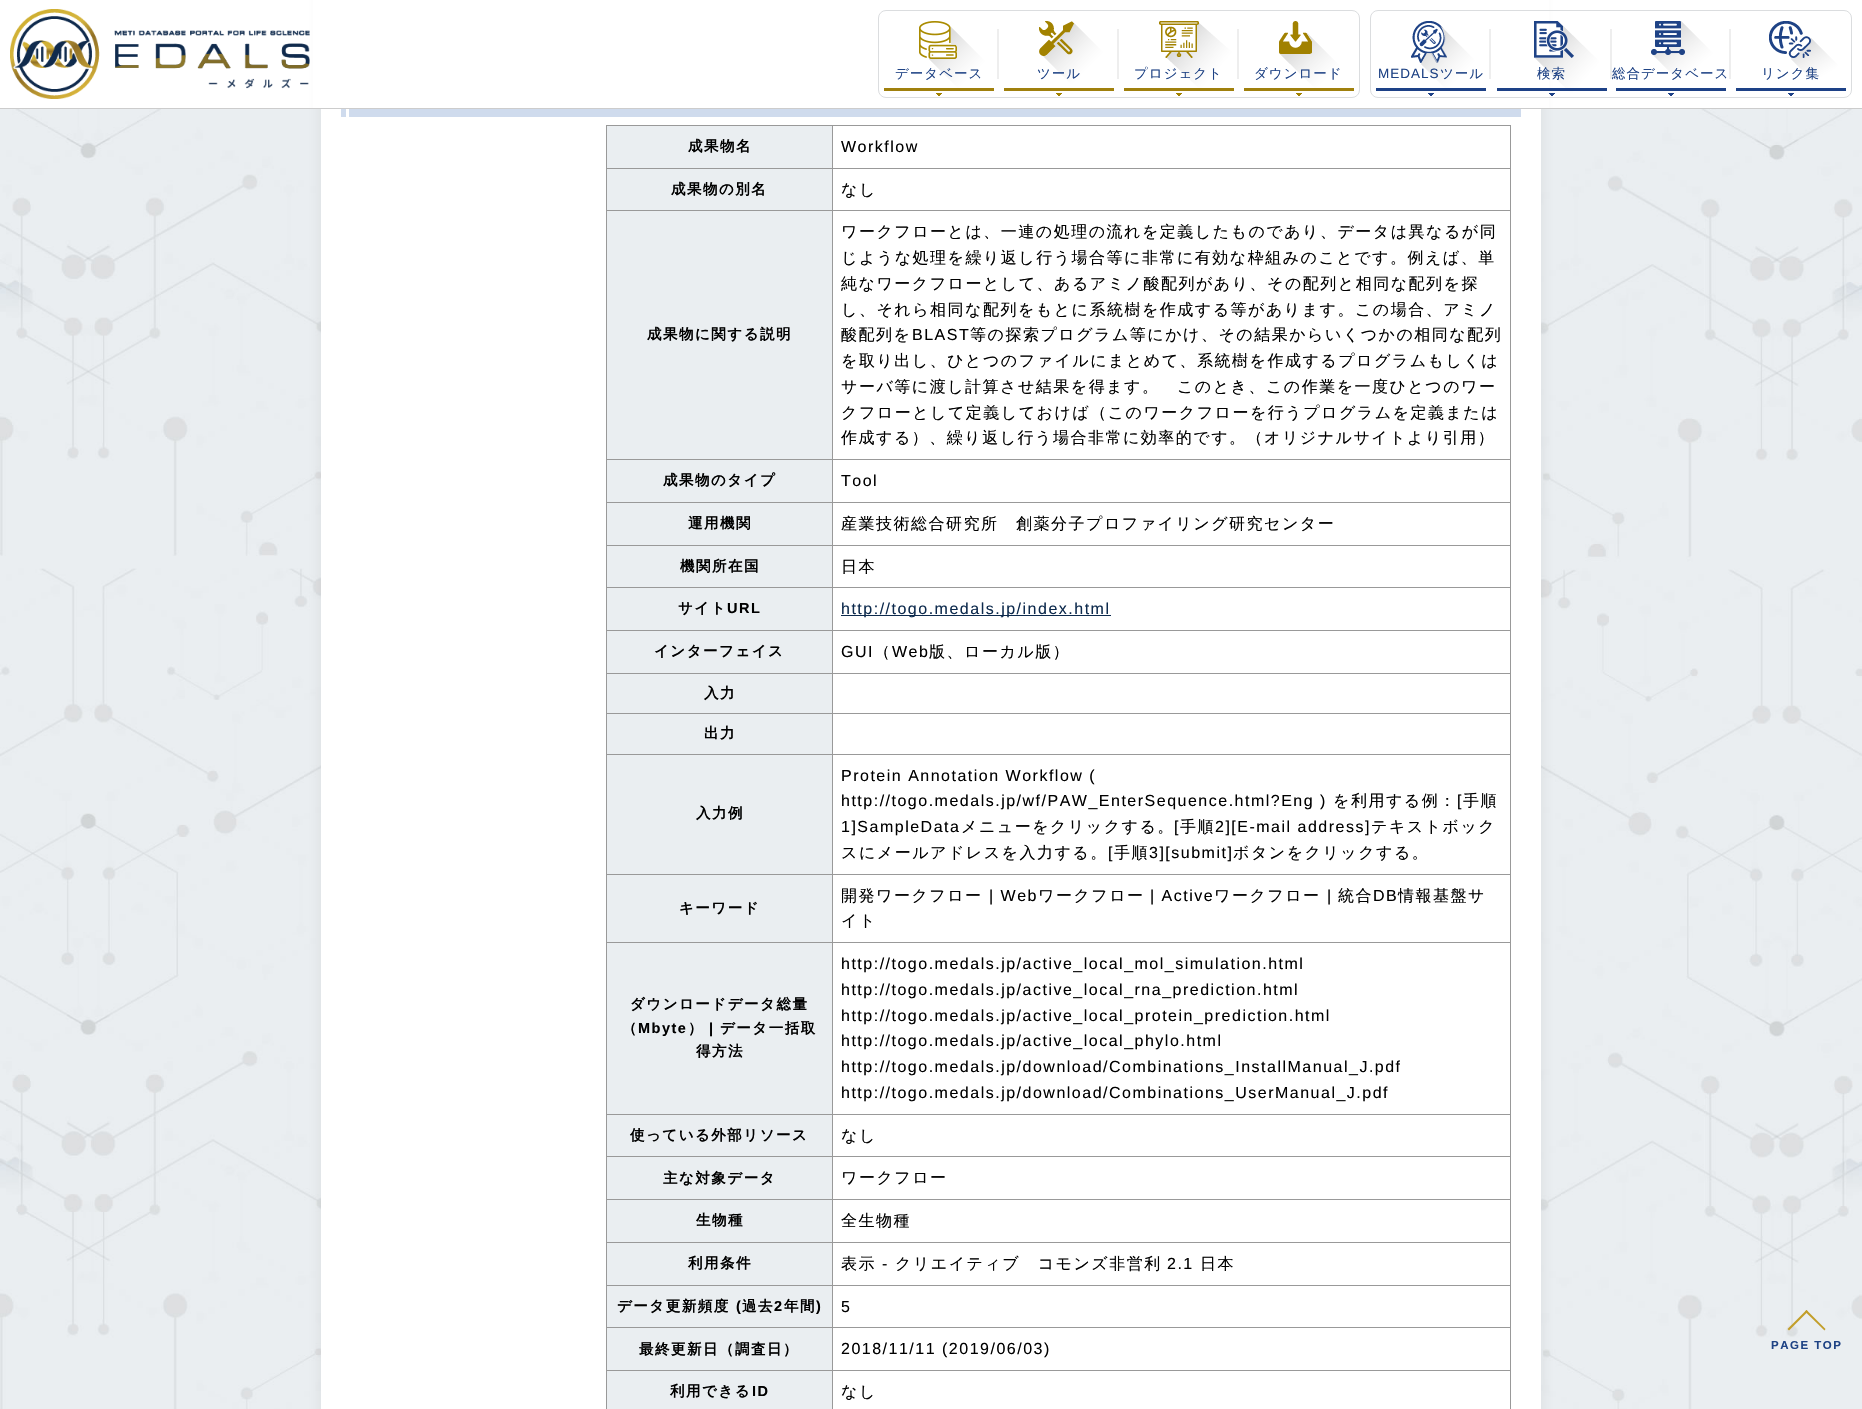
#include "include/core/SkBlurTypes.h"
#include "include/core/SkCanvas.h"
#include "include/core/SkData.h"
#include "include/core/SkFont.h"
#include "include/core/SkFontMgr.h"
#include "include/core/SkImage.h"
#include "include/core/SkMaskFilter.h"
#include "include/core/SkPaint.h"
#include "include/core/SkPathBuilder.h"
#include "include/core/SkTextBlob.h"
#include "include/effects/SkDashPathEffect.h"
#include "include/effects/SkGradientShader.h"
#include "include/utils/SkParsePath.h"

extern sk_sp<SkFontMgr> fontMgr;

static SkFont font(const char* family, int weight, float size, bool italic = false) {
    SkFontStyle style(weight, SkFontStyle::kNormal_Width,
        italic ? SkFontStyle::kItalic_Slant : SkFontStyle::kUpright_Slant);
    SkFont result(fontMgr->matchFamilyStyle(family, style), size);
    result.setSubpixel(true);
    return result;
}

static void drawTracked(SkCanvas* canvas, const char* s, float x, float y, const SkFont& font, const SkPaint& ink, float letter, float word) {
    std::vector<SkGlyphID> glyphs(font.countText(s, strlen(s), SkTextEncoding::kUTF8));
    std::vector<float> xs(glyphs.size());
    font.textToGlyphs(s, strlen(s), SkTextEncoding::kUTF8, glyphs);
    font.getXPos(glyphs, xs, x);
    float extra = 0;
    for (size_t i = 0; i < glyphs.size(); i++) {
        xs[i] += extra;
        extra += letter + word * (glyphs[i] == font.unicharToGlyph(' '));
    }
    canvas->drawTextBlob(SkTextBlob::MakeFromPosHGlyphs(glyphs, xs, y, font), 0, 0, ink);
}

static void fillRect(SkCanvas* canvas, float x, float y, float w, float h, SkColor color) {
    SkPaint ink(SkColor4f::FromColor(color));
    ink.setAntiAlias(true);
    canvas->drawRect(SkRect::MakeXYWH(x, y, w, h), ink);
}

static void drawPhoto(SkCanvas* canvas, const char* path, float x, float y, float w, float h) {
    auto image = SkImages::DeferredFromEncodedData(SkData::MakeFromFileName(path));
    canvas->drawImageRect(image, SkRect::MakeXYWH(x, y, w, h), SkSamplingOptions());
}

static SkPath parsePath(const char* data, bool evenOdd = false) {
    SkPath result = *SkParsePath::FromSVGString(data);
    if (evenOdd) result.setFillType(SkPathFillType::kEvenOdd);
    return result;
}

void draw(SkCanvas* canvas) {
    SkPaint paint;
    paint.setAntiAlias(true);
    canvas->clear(0xFFFFFFFF);
    drawPhoto(canvas, "assets/img1.png", 0, 109, 1862, 1300);
    paint.setColor(0x1A0A0A0A);
    paint.setMaskFilter(SkMaskFilter::MakeBlur(kNormal_SkBlurStyle, 8));
    canvas->drawRect(SkRect::MakeXYWH(323, -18, 1216, 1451), paint);
    paint.setMaskFilter(nullptr);
    fillRect(canvas, 313, 0, 1236, 108, 0xFFFFFFFF);
    fillRect(canvas, 0, 108, 1862, 1, 0xFFCCCCCC);
    drawPhoto(canvas, "assets/img2.png", 10, 9, 300, 90);
    paint.setStroke(true);
    paint.setStrokeWidth(1);
    paint.setColor(0xFFDBDDDF);
    canvas->drawRoundRect(SkRect::MakeXYWH(878.5f, 10.5f, 481, 87), 7.5f, 7.5f, paint);
    fillRect(canvas, 997, 29, 2, 50, 0xFFEEEEEE);
    drawPhoto(canvas, "assets/img3.png", 884, 21, 110, 75);
    SkFont font1 = font("WenQuanYi Zen Hei", 500, 13.5f);
    paint.setStroke(false);
    paint.setColor(0xFF1F4385);
    drawTracked(canvas, "データベース", 895, 78, font1, paint, 1, 0);
    fillRect(canvas, 1117, 29, 2, 50, 0xFFEEEEEE);
    drawPhoto(canvas, "assets/img4.png", 1004, 21, 110, 75);
    drawTracked(canvas, "ツール", 1037, 78, font1, paint, 1, 0);
    fillRect(canvas, 1237, 29, 2, 50, 0xFFEEEEEE);
    drawPhoto(canvas, "assets/img5.png", 1124, 21, 110, 75);
    drawTracked(canvas, "プロジェクト", 1134, 78, font1, paint, 1, 0);
    drawPhoto(canvas, "assets/img6.png", 1244, 21, 110, 75);
    drawTracked(canvas, "ダウンロード", 1254, 78, font1, paint, 1, 0);
    paint.setStroke(true);
    paint.setColor(0xFFDBDDDF);
    canvas->drawRoundRect(SkRect::MakeXYWH(1370.5f, 10.5f, 481, 87), 7.5f, 7.5f, paint);
    fillRect(canvas, 1489, 29, 2, 50, 0xFFEEEEEE);
    drawPhoto(canvas, "assets/img7.png", 1376, 21, 110, 75);
    SkFont font2 = font("Liberation Sans", 400, 13.5f);
    paint.setStroke(false);
    paint.setColor(0xFF1F4385);
    drawTracked(canvas, "MEDALS", 1378, 78, font2, paint, 1, 0);
    drawTracked(canvas, "ツール", 1440, 78, font1, paint, 1, 0);
    fillRect(canvas, 1729, 29, 2, 50, 0xFFEEEEEE);
    drawPhoto(canvas, "assets/img8.png", 1616, 21, 110, 75);
    drawTracked(canvas, "総合データベース", 1612, 78, font1, paint, 1, 0);
    drawPhoto(canvas, "assets/img9.png", 1736, 21, 110, 75);
    drawTracked(canvas, "リンク集", 1761, 78, font1, paint, 1, 0);
    fillRect(canvas, 1610, 29, 2, 50, 0xFFEEEEEE);
    drawPhoto(canvas, "assets/img10.png", 1497, 21, 110, 75);
    drawTracked(canvas, "検索", 1537, 78, font1, paint, 1, 0);
    fillRect(canvas, 321, 109, 1220, 1300, 0xFFFFFFFF);
    fillRect(canvas, 341, 109, 1180, 8, 0xFFCFDBED);
    fillRect(canvas, 346, 109, 3, 8, 0xFFFFFFFF);
    fillRect(canvas, 607, 126, 225, 42, 0xFFEAEEF1);
    fillRect(canvas, 832, 125, 679, 1, 0xFF999999);
    fillRect(canvas, 832, 168, 679, 1, 0xFF999999);
    fillRect(canvas, 832, 210, 679, 1, 0xFF999999);
    fillRect(canvas, 832, 459, 679, 1, 0xFF999999);
    fillRect(canvas, 832, 502, 679, 1, 0xFF999999);
    fillRect(canvas, 832, 545, 679, 1, 0xFF999999);
    fillRect(canvas, 832, 587, 679, 1, 0xFF999999);
    fillRect(canvas, 832, 630, 679, 1, 0xFF999999);
    fillRect(canvas, 832, 673, 679, 1, 0xFF999999);
    fillRect(canvas, 832, 713, 679, 1, 0xFF999999);
    fillRect(canvas, 832, 754, 679, 1, 0xFF999999);
    fillRect(canvas, 832, 874, 679, 1, 0xFF999999);
    fillRect(canvas, 832, 942, 679, 1, 0xFF999999);
    fillRect(canvas, 832, 1114, 679, 1, 0xFF999999);
    fillRect(canvas, 832, 1156, 679, 1, 0xFF999999);
    fillRect(canvas, 832, 1199, 679, 1, 0xFF999999);
    fillRect(canvas, 832, 1242, 679, 1, 0xFF999999);
    fillRect(canvas, 832, 1285, 679, 1, 0xFF999999);
    fillRect(canvas, 832, 1327, 679, 1, 0xFF999999);
    fillRect(canvas, 832, 1370, 679, 1, 0xFF999999);
    fillRect(canvas, 832, 1370, 1, 39, 0xFF999999);
    fillRect(canvas, 606, 1370, 227, 1, 0xFF999999);
    fillRect(canvas, 832, 1327, 1, 44, 0xFF999999);
    fillRect(canvas, 606, 1327, 227, 1, 0xFF999999);
    fillRect(canvas, 832, 1285, 1, 43, 0xFF999999);
    fillRect(canvas, 606, 1285, 227, 1, 0xFF999999);
    fillRect(canvas, 832, 1242, 1, 44, 0xFF999999);
    fillRect(canvas, 606, 1242, 227, 1, 0xFF999999);
    fillRect(canvas, 832, 1199, 1, 44, 0xFF999999);
    fillRect(canvas, 606, 1199, 227, 1, 0xFF999999);
    fillRect(canvas, 832, 1156, 1, 44, 0xFF999999);
    fillRect(canvas, 606, 1156, 227, 1, 0xFF999999);
    fillRect(canvas, 832, 1114, 1, 43, 0xFF999999);
    fillRect(canvas, 606, 1114, 227, 1, 0xFF999999);
    fillRect(canvas, 832, 942, 1, 173, 0xFF999999);
    fillRect(canvas, 606, 942, 227, 1, 0xFF999999);
    fillRect(canvas, 832, 874, 1, 69, 0xFF999999);
    fillRect(canvas, 606, 874, 227, 1, 0xFF999999);
    fillRect(canvas, 832, 754, 1, 121, 0xFF999999);
    fillRect(canvas, 606, 754, 227, 1, 0xFF999999);
    fillRect(canvas, 832, 713, 1, 42, 0xFF999999);
    fillRect(canvas, 606, 713, 227, 1, 0xFF999999);
    fillRect(canvas, 832, 673, 1, 41, 0xFF999999);
    fillRect(canvas, 606, 673, 227, 1, 0xFF999999);
    fillRect(canvas, 832, 630, 1, 44, 0xFF999999);
    fillRect(canvas, 606, 630, 227, 1, 0xFF999999);
    fillRect(canvas, 832, 587, 1, 44, 0xFF999999);
    fillRect(canvas, 606, 587, 227, 1, 0xFF999999);
    fillRect(canvas, 832, 545, 1, 43, 0xFF999999);
    fillRect(canvas, 606, 545, 227, 1, 0xFF999999);
    fillRect(canvas, 832, 502, 1, 44, 0xFF999999);
    fillRect(canvas, 606, 502, 227, 1, 0xFF999999);
    fillRect(canvas, 832, 459, 1, 44, 0xFF999999);
    fillRect(canvas, 606, 459, 227, 1, 0xFF999999);
    fillRect(canvas, 832, 210, 1, 250, 0xFF999999);
    fillRect(canvas, 606, 210, 227, 1, 0xFF999999);
    fillRect(canvas, 832, 168, 1, 43, 0xFF999999);
    fillRect(canvas, 606, 168, 227, 1, 0xFF999999);
    fillRect(canvas, 832, 125, 1, 44, 0xFF999999);
    fillRect(canvas, 606, 125, 227, 1, 0xFF999999);
    fillRect(canvas, 606, 1370, 1, 39, 0xFF999999);
    fillRect(canvas, 606, 1327, 1, 44, 0xFF999999);
    fillRect(canvas, 606, 1285, 1, 43, 0xFF999999);
    fillRect(canvas, 606, 1242, 1, 44, 0xFF999999);
    fillRect(canvas, 606, 1199, 1, 44, 0xFF999999);
    fillRect(canvas, 606, 1156, 1, 44, 0xFF999999);
    fillRect(canvas, 606, 1114, 1, 43, 0xFF999999);
    fillRect(canvas, 606, 942, 1, 173, 0xFF999999);
    fillRect(canvas, 606, 874, 1, 69, 0xFF999999);
    fillRect(canvas, 606, 754, 1, 121, 0xFF999999);
    fillRect(canvas, 606, 713, 1, 42, 0xFF999999);
    fillRect(canvas, 606, 673, 1, 41, 0xFF999999);
    fillRect(canvas, 606, 630, 1, 44, 0xFF999999);
    fillRect(canvas, 606, 587, 1, 44, 0xFF999999);
    fillRect(canvas, 606, 545, 1, 43, 0xFF999999);
    fillRect(canvas, 606, 502, 1, 44, 0xFF999999);
    fillRect(canvas, 606, 459, 1, 44, 0xFF999999);
    fillRect(canvas, 606, 210, 1, 250, 0xFF999999);
    fillRect(canvas, 606, 168, 1, 43, 0xFF999999);
    fillRect(canvas, 606, 125, 1, 44, 0xFF999999);
    SkFont font3 = font("WenQuanYi Zen Hei", 700, 14.5f);
    paint.setColor(0xFF000000);
    drawTracked(canvas, "成果物名", 688, 151, font3, paint, 1.5f, 0);
    fillRect(canvas, 1510, 1370, 1, 39, 0xFF999999);
    fillRect(canvas, 1510, 1327, 1, 44, 0xFF999999);
    fillRect(canvas, 1510, 1285, 1, 43, 0xFF999999);
    fillRect(canvas, 1510, 1242, 1, 44, 0xFF999999);
    fillRect(canvas, 1510, 1199, 1, 44, 0xFF999999);
    fillRect(canvas, 1510, 1156, 1, 44, 0xFF999999);
    fillRect(canvas, 1510, 1114, 1, 43, 0xFF999999);
    fillRect(canvas, 1510, 942, 1, 173, 0xFF999999);
    fillRect(canvas, 1510, 874, 1, 69, 0xFF999999);
    fillRect(canvas, 1510, 754, 1, 121, 0xFF999999);
    fillRect(canvas, 1510, 713, 1, 42, 0xFF999999);
    fillRect(canvas, 1510, 673, 1, 41, 0xFF999999);
    fillRect(canvas, 1510, 630, 1, 44, 0xFF999999);
    fillRect(canvas, 1510, 587, 1, 44, 0xFF999999);
    fillRect(canvas, 1510, 545, 1, 43, 0xFF999999);
    fillRect(canvas, 1510, 502, 1, 44, 0xFF999999);
    fillRect(canvas, 1510, 459, 1, 44, 0xFF999999);
    fillRect(canvas, 1510, 210, 1, 250, 0xFF999999);
    fillRect(canvas, 1510, 168, 1, 43, 0xFF999999);
    fillRect(canvas, 1510, 125, 1, 44, 0xFF999999);
    SkFont font4 = font("Liberation Sans", 400, 16);
    drawTracked(canvas, "Workflow", 841, 152, font4, paint, 1.5f, 0);
    fillRect(canvas, 607, 169, 225, 41, 0xFFEAEEF1);
    drawTracked(canvas, "成果物の別名", 671, 194, font3, paint, 1.5f, 0);
    SkFont font5 = font("WenQuanYi Zen Hei", 500, 16);
    drawTracked(canvas, "なし", 841, 195, font5, paint, 1.5f, 0);
    fillRect(canvas, 607, 211, 225, 248, 0xFFEAEEF1);
    drawTracked(canvas, "成果物に関する説明", 647, 339, font3, paint, 1.5f, 0);
    drawTracked(canvas, "ワークフローとは、一連の処理の流れを定義したものであり、データは異なるが同", 841, 237, font5, paint, 1.5f, 0);
    drawTracked(canvas, "じような処理を繰り返し行う場合等に非常に有効な枠組みのことです。例えば、単", 841, 263, font5, paint, 1.5f, 0);
    drawTracked(canvas, "純なワークフローとして、あるアミノ酸配列があり、その配列と相同な配列を探", 841, 289, font5, paint, 1.5f, 0);
    drawTracked(canvas, "し、それら相同な配列をもとに系統樹を作成する等があります。この場合、アミノ", 841, 315, font5, paint, 1.5f, 0);
    drawTracked(canvas, "酸配列を", 841, 340, font5, paint, 1.5f, 0);
    drawTracked(canvas, "BLAST", 912, 340, font4, paint, 1.5f, 0);
    drawTracked(canvas, "等の探索プログラム等にかけ、その結果からいくつかの相同な配列", 970, 340, font5, paint, 1.5f, 0);
    drawTracked(canvas, "を取り出し、ひとつのファイルにまとめて、系統樹を作成するプログラムもしくは", 841, 366, font5, paint, 1.5f, 0);
    drawTracked(canvas, "サーバ等に渡し計算させ結果を得ます。　このとき、この作業を一度ひとつのワー", 841, 392, font5, paint, 1.5f, 0);
    drawTracked(canvas, "クフローとして定義しておけば（このワークフローを行うプログラムを定義または", 841, 418, font5, paint, 1.5f, 0);
    drawTracked(canvas, "作成する）、繰り返し行う場合非常に効率的です。（オリジナルサイトより引用）", 841, 443, font5, paint, 1.5f, 0);
    fillRect(canvas, 607, 460, 225, 42, 0xFFEAEEF1);
    drawTracked(canvas, "成果物のタイプ", 663, 485, font3, paint, 1.5f, 0);
    drawTracked(canvas, "Tool", 841, 486, font4, paint, 1.5f, 0);
    fillRect(canvas, 607, 503, 225, 42, 0xFFEAEEF1);
    drawTracked(canvas, "運用機関", 688, 528, font3, paint, 1.5f, 0);
    drawTracked(canvas, "産業技術総合研究所　創薬分子プロファイリング研究センター", 841, 529, font5, paint, 1.5f, 0);
    fillRect(canvas, 607, 546, 225, 41, 0xFFEAEEF1);
    drawTracked(canvas, "機関所在国", 680, 571, font3, paint, 1.5f, 0);
    drawTracked(canvas, "日本", 841, 572, font5, paint, 1.5f, 0);
    fillRect(canvas, 607, 588, 225, 42, 0xFFEAEEF1);
    drawTracked(canvas, "サイト", 678, 613, font3, paint, 1.5f, 0);
    SkFont font6 = font("Liberation Sans", 700, 14.5f);
    drawTracked(canvas, "URL", 727, 613, font6, paint, 1.5f, 0);
    fillRect(canvas, 841, 615, 270, 1, 0xFF0D2A4D);
    paint.setColor(0xFF0D2A4D);
    drawTracked(canvas, "http://togo.medals.jp/index.html", 841, 614, font4, paint, 1.5f, 0);
    fillRect(canvas, 607, 631, 225, 42, 0xFFEAEEF1);
    paint.setColor(0xFF000000);
    drawTracked(canvas, "インターフェイス", 654, 656, font3, paint, 1.5f, 0);
    drawTracked(canvas, "GUI", 841, 657, font4, paint, 1.5f, 0);
    drawTracked(canvas, "（", 874, 657, font5, paint, 1.5f, 0);
    drawTracked(canvas, "Web", 892, 657, font4, paint, 1.5f, 0);
    drawTracked(canvas, "版、ローカル版）", 929, 657, font5, paint, 1.5f, 0);
    fillRect(canvas, 607, 674, 225, 39, 0xFFEAEEF1);
    drawTracked(canvas, "入力", 704, 698, font3, paint, 1.5f, 0);
    fillRect(canvas, 607, 714, 225, 40, 0xFFEAEEF1);
    drawTracked(canvas, "出力", 704, 738, font3, paint, 1.5f, 0);
    fillRect(canvas, 607, 755, 225, 119, 0xFFEAEEF1);
    drawTracked(canvas, "入力例", 696, 818, font3, paint, 1.5f, 0);
    drawTracked(canvas, "Protein Annotation Workflow (", 841, 781, font4, paint, 1.5f, 0);
    drawTracked(canvas, "http://togo.medals.jp/wf/PAW_EnterSequence.html?Eng )", 841, 806, font4, paint, 1.5f, 0);
    drawTracked(canvas, "を利用する例：", 1333, 806, font5, paint, 1.5f, 0);
    drawTracked(canvas, "[", 1457, 806, font4, paint, 1.5f, 0);
    drawTracked(canvas, "手順", 1463, 806, font5, paint, 1.5f, 0);
    drawTracked(canvas, "1]SampleData", 841, 832, font4, paint, 1.5f, 0);
    drawTracked(canvas, "メニューをクリックする。", 961, 832, font5, paint, 1.5f, 0);
    drawTracked(canvas, "[", 1174, 832, font4, paint, 1.5f, 0);
    drawTracked(canvas, "手順", 1180, 832, font5, paint, 1.5f, 0);
    drawTracked(canvas, "2][E-mail address]", 1215, 832, font4, paint, 1.5f, 0);
    drawTracked(canvas, "テキストボック", 1371, 832, font5, paint, 1.5f, 0);
    drawTracked(canvas, "スにメールアドレスを入力する。", 841, 858, font5, paint, 1.5f, 0);
    drawTracked(canvas, "[", 1108, 858, font4, paint, 1.5f, 0);
    drawTracked(canvas, "手順", 1114, 858, font5, paint, 1.5f, 0);
    drawTracked(canvas, "3][submit]", 1149, 858, font4, paint, 1.5f, 0);
    drawTracked(canvas, "ボタンをクリックする。", 1233, 858, font5, paint, 1.5f, 0);
    fillRect(canvas, 607, 875, 225, 67, 0xFFEAEEF1);
    drawTracked(canvas, "キーワード", 679, 913, font3, paint, 1.5f, 0);
    drawTracked(canvas, "開発ワークフロー", 841, 901, font5, paint, 1.5f, 0);
    drawTracked(canvas, "| Web", 989, 901, font4, paint, 1.5f, 0);
    drawTracked(canvas, "ワークフロー", 1038, 901, font5, paint, 1.5f, 0);
    drawTracked(canvas, "| Active", 1150, 901, font4, paint, 1.5f, 0);
    drawTracked(canvas, "ワークフロー", 1214, 901, font5, paint, 1.5f, 0);
    drawTracked(canvas, "|", 1327, 901, font4, paint, 1.5f, 0);
    drawTracked(canvas, "統合", 1338, 901, font5, paint, 1.5f, 0);
    drawTracked(canvas, "DB", 1373, 901, font4, paint, 1.5f, 0);
    drawTracked(canvas, "情報基盤サ", 1398, 901, font5, paint, 1.5f, 0);
    drawTracked(canvas, "イト", 841, 926, font5, paint, 1.5f, 0);
    fillRect(canvas, 607, 943, 225, 171, 0xFFEAEEF1);
    drawTracked(canvas, "ダウンロードデータ総量", 630, 1009, font3, paint, 1.5f, 0);
    drawTracked(canvas, "（", 622, 1033, font3, paint, 1.5f, 0);
    drawTracked(canvas, "Mbyte", 638, 1033, font6, paint, 1.5f, 0);
    drawTracked(canvas, "）", 688, 1033, font3, paint, 1.5f, 0);
    drawTracked(canvas, "|", 709, 1033, font6, paint, 1.5f, 0);
    drawTracked(canvas, "データ一括取", 720, 1033, font3, paint, 1.5f, 0);
    drawTracked(canvas, "得方法", 696, 1056, font3, paint, 1.5f, 0);
    drawTracked(canvas, "http://togo.medals.jp/active_local_mol_simulation.html", 841, 969, font4, paint, 1.5f, 0);
    drawTracked(canvas, "http://togo.medals.jp/active_local_rna_prediction.html", 841, 995, font4, paint, 1.5f, 0);
    drawTracked(canvas, "http://togo.medals.jp/active_local_protein_prediction.html", 841, 1021, font4, paint, 1.5f, 0);
    drawTracked(canvas, "http://togo.medals.jp/active_local_phylo.html", 841, 1046, font4, paint, 1.5f, 0);
    drawTracked(canvas, "http://togo.medals.jp/download/Combinations_InstallManual_J.pdf", 841, 1072, font4, paint, 1.5f, 0);
    drawTracked(canvas, "http://togo.medals.jp/download/Combinations_UserManual_J.pdf", 841, 1098, font4, paint, 1.5f, 0);
    fillRect(canvas, 607, 1115, 225, 41, 0xFFEAEEF1);
    drawTracked(canvas, "使っている外部リソース", 630, 1140, font3, paint, 1.5f, 0);
    drawTracked(canvas, "なし", 841, 1141, font5, paint, 1.5f, 0);
    fillRect(canvas, 607, 1157, 225, 42, 0xFFEAEEF1);
    drawTracked(canvas, "主な対象データ", 663, 1183, font3, paint, 1.5f, 0);
    drawTracked(canvas, "ワークフロー", 841, 1183, font5, paint, 1.5f, 0);
    fillRect(canvas, 607, 1200, 225, 42, 0xFFEAEEF1);
    drawTracked(canvas, "生物種", 696, 1225, font3, paint, 1.5f, 0);
    drawTracked(canvas, "全生物種", 841, 1226, font5, paint, 1.5f, 0);
    fillRect(canvas, 607, 1243, 225, 42, 0xFFEAEEF1);
    drawTracked(canvas, "利用条件", 688, 1268, font3, paint, 1.5f, 0);
    drawTracked(canvas, "表示", 841, 1269, font5, paint, 1.5f, 0);
    drawTracked(canvas, "-", 882, 1269, font4, paint, 1.5f, 0);
    drawTracked(canvas, "クリエイティブ　コモンズ非営利", 895, 1269, font5, paint, 1.5f, 0);
    drawTracked(canvas, "2.1", 1167, 1269, font4, paint, 1.5f, 0);
    drawTracked(canvas, "日本", 1200, 1269, font5, paint, 1.5f, 0);
    fillRect(canvas, 607, 1286, 225, 41, 0xFFEAEEF1);
    drawTracked(canvas, "データ更新頻度", 617, 1311, font3, paint, 1.5f, 0);
    drawTracked(canvas, "(", 736, 1311, font6, paint, 1.5f, 0);
    drawTracked(canvas, "過去", 742, 1311, font3, paint, 1.5f, 0);
    drawTracked(canvas, "2", 774, 1311, font6, paint, 1.5f, 0);
    drawTracked(canvas, "年間", 784, 1311, font3, paint, 1.5f, 0);
    drawTracked(canvas, ")", 816, 1311, font6, paint, 1.5f, 0);
    drawTracked(canvas, "5", 841, 1312, font4, paint, 1.5f, 0);
    fillRect(canvas, 607, 1328, 225, 42, 0xFFEAEEF1);
    drawTracked(canvas, "最終更新日（調査日）", 639, 1354, font3, paint, 1.5f, 0);
    drawTracked(canvas, "2018/11/11 (2019/06/03)", 841, 1354, font4, paint, 1.5f, 0);
    fillRect(canvas, 607, 1371, 225, 38, 0xFFEAEEF1);
    drawTracked(canvas, "利用できる", 670, 1396, font3, paint, 1.5f, 0);
    drawTracked(canvas, "ID", 752, 1396, font6, paint, 1.5f, 0);
    drawTracked(canvas, "なし", 841, 1397, font5, paint, 1.5f, 0);
    paint.setColor(0xFFC29E29);
    canvas->drawPath(parsePath("M1787.5 1329L1806.5 1310L1808 1311.5L1789 1330.5Z"), paint);
    canvas->drawPath(parsePath("M1805 1311.5L1806.5 1310L1825.5 1329L1824.5 1330.5Z"), paint);
    SkFont font7 = font("Liberation Sans", 700, 11.5f);
    paint.setColor(0xFF1F4385);
    drawTracked(canvas, "PAGE TOP", 1771, 1349, font7, paint, 1.5f, 0);
}
